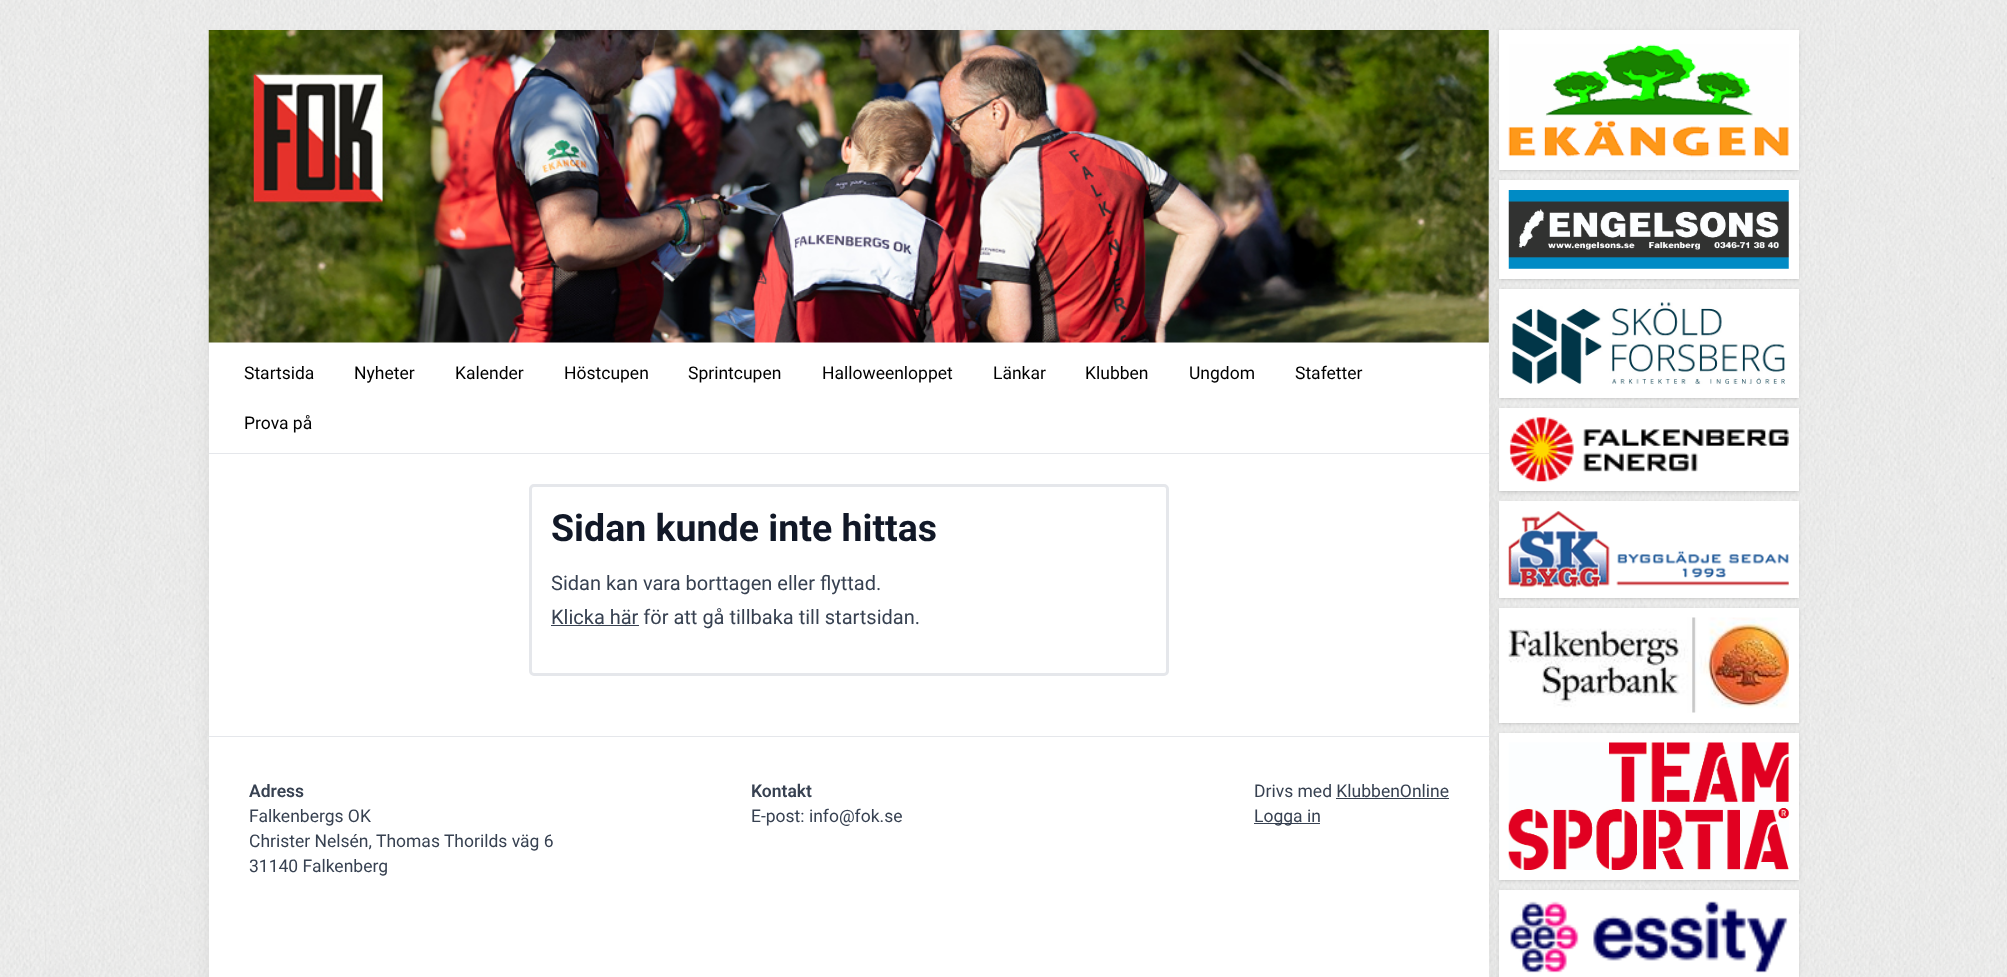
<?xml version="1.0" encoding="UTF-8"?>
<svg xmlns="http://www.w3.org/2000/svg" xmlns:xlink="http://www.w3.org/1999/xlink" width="2007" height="977">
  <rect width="100%" height="100%" fill="#ffffff" />
  <image x="0" y="0" width="2007" height="977" xlink:href="image1.png" />
  <rect x="213" y="46" width="1272" height="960" fill="#000000" fill-opacity="0.1" filter="blur(9.5px)" />
  <rect x="209" y="30" width="1280" height="947" fill="#ffffff" />
  <image x="208" y="30" width="1281" height="313" xlink:href="image2.png" />
  <rect x="209" y="453" width="1280" height="1" fill="#e5e7eb" />
  <rect x="530.5" y="485.5" width="637" height="189" rx="3.5" fill="none" stroke="#e5e7eb" stroke-width="3" />
  <rect x="551" y="625" width="88" height="1" fill="#374151" />
  <rect x="209" y="736" width="1280" height="1" fill="#e5e7eb" />
  <rect x="1336" y="798" width="113" height="1" fill="#374151" />
  <rect x="1254" y="823" width="66" height="1" fill="#374151" />
  <rect x="1500" y="33" width="298" height="137" fill="#000000" fill-opacity="0.1" filter="blur(1px)" />
  <rect x="1499" y="31" width="300" height="140" fill="#000000" fill-opacity="0.1" filter="blur(2px)" />
  <rect x="1499" y="30" width="300" height="140" fill="#ffffff" />
  <image x="1508" y="44" width="281" height="113" xlink:href="image3.png" />
  <rect x="1500" y="183" width="298" height="96" fill="#000000" fill-opacity="0.1" filter="blur(1px)" />
  <rect x="1499" y="181" width="300" height="99" fill="#000000" fill-opacity="0.1" filter="blur(2px)" />
  <rect x="1499" y="180" width="300" height="99" fill="#ffffff" />
  <image x="1508" y="190" width="281" height="79" xlink:href="image4.png" />
  <rect x="1500" y="291" width="298" height="107" fill="#000000" fill-opacity="0.1" filter="blur(1px)" />
  <rect x="1499" y="290" width="300" height="109" fill="#000000" fill-opacity="0.1" filter="blur(2px)" />
  <rect x="1499" y="289" width="300" height="109" fill="#ffffff" />
  <image x="1512" y="302" width="273" height="82" xlink:href="image5.png" />
  <rect x="1500" y="410" width="298" height="81" fill="#000000" fill-opacity="0.1" filter="blur(1px)" />
  <rect x="1499" y="409" width="300" height="84" fill="#000000" fill-opacity="0.1" filter="blur(2px)" />
  <rect x="1499" y="408" width="300" height="83" fill="#ffffff" />
  <image x="1509" y="417" width="280" height="65" xlink:href="image6.png" />
  <rect x="1500" y="504" width="298" height="94" fill="#000000" fill-opacity="0.1" filter="blur(1px)" />
  <rect x="1499" y="503" width="300" height="96" fill="#000000" fill-opacity="0.1" filter="blur(2px)" />
  <rect x="1499" y="501" width="300" height="97" fill="#ffffff" />
  <image x="1508" y="511" width="281" height="77" xlink:href="image7.png" />
  <rect x="1500" y="610" width="298" height="113" fill="#000000" fill-opacity="0.1" filter="blur(1px)" />
  <rect x="1499" y="609" width="300" height="115" fill="#000000" fill-opacity="0.1" filter="blur(2px)" />
  <rect x="1499" y="608" width="300" height="115" fill="#ffffff" />
  <image x="1508" y="617" width="281" height="96" xlink:href="image8.png" />
  <rect x="1500" y="735" width="298" height="145" fill="#000000" fill-opacity="0.1" filter="blur(1px)" />
  <rect x="1499" y="734" width="300" height="147" fill="#000000" fill-opacity="0.1" filter="blur(2px)" />
  <rect x="1499" y="733" width="300" height="147" fill="#ffffff" />
  <image x="1508" y="742" width="281" height="128" xlink:href="image9.png" />
  <rect x="1499" y="891" width="300" height="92" fill="#000000" fill-opacity="0.1" filter="blur(2px)" />
  <rect x="1499" y="890" width="300" height="87" fill="#ffffff" />
  <image x="1510" y="901" width="278" height="72" xlink:href="image10.png" />
  <text x="244" y="379" style="font-family: Roboto; font-size: 17.5px; fill: #000000">Startsida</text>
  <text x="354" y="379" style="font-family: Roboto; font-size: 17.5px; fill: #000000">Nyheter</text>
  <text x="455" y="379" style="font-family: Roboto; font-size: 17.5px; fill: #000000">Kalender</text>
  <text x="564" y="379" style="font-family: Roboto; font-size: 17.5px; fill: #000000">Höstcupen</text>
  <text x="688" y="379" style="font-family: Roboto; font-size: 17.5px; fill: #000000">Sprintcupen</text>
  <text x="822" y="379" style="font-family: Roboto; font-size: 17.5px; fill: #000000">Halloweenloppet</text>
  <text x="993" y="379" style="font-family: Roboto; font-size: 17.5px; fill: #000000">Länkar</text>
  <text x="1085" y="379" style="font-family: Roboto; font-size: 17.5px; fill: #000000">Klubben</text>
  <text x="1189" y="379" style="font-family: Roboto; font-size: 17.5px; fill: #000000">Ungdom</text>
  <text x="1295" y="379" style="font-family: Roboto; font-size: 17.5px; fill: #000000">Stafetter</text>
  <text x="244" y="429" style="font-family: Roboto; font-size: 17.5px; fill: #000000">Prova på</text>
  <text x="551" y="541" style="font-family: Roboto; font-size: 37.5px; font-weight: bold; fill: #111827">Sidan kunde inte hittas</text>
  <text x="551" y="590" style="font-family: Roboto; font-size: 20px; fill: #374151">Sidan kan vara borttagen eller flyttad.</text>
  <text x="551" y="624" style="font-family: Roboto; font-size: 20px; fill: #374151">Klicka här för att gå tillbaka till startsidan.</text>
  <text x="249" y="797" style="font-family: Roboto; font-size: 17.5px; font-weight: 600; fill: #374151">Adress</text>
  <text x="249" y="822" style="font-family: Roboto; font-size: 17.5px; fill: #374151">Falkenbergs OK</text>
  <text x="249" y="847" style="font-family: Roboto; font-size: 17.5px; fill: #374151">Christer Nelsén, Thomas Thorilds väg 6</text>
  <text x="249" y="872" style="font-family: Roboto; font-size: 17.5px; fill: #374151">31140 Falkenberg</text>
  <text x="751" y="797" style="font-family: Roboto; font-size: 17.5px; font-weight: 600; fill: #374151">Kontakt</text>
  <text x="751" y="822" style="font-family: Roboto; font-size: 17.5px; fill: #374151">E-post: info@fok.se</text>
  <text x="1254" y="797" style="font-family: Roboto; font-size: 17.5px; fill: #374151">Drivs med KlubbenOnline</text>
  <text x="1254" y="822" style="font-family: Roboto; font-size: 17.5px; fill: #374151">Logga in</text>
</svg>
